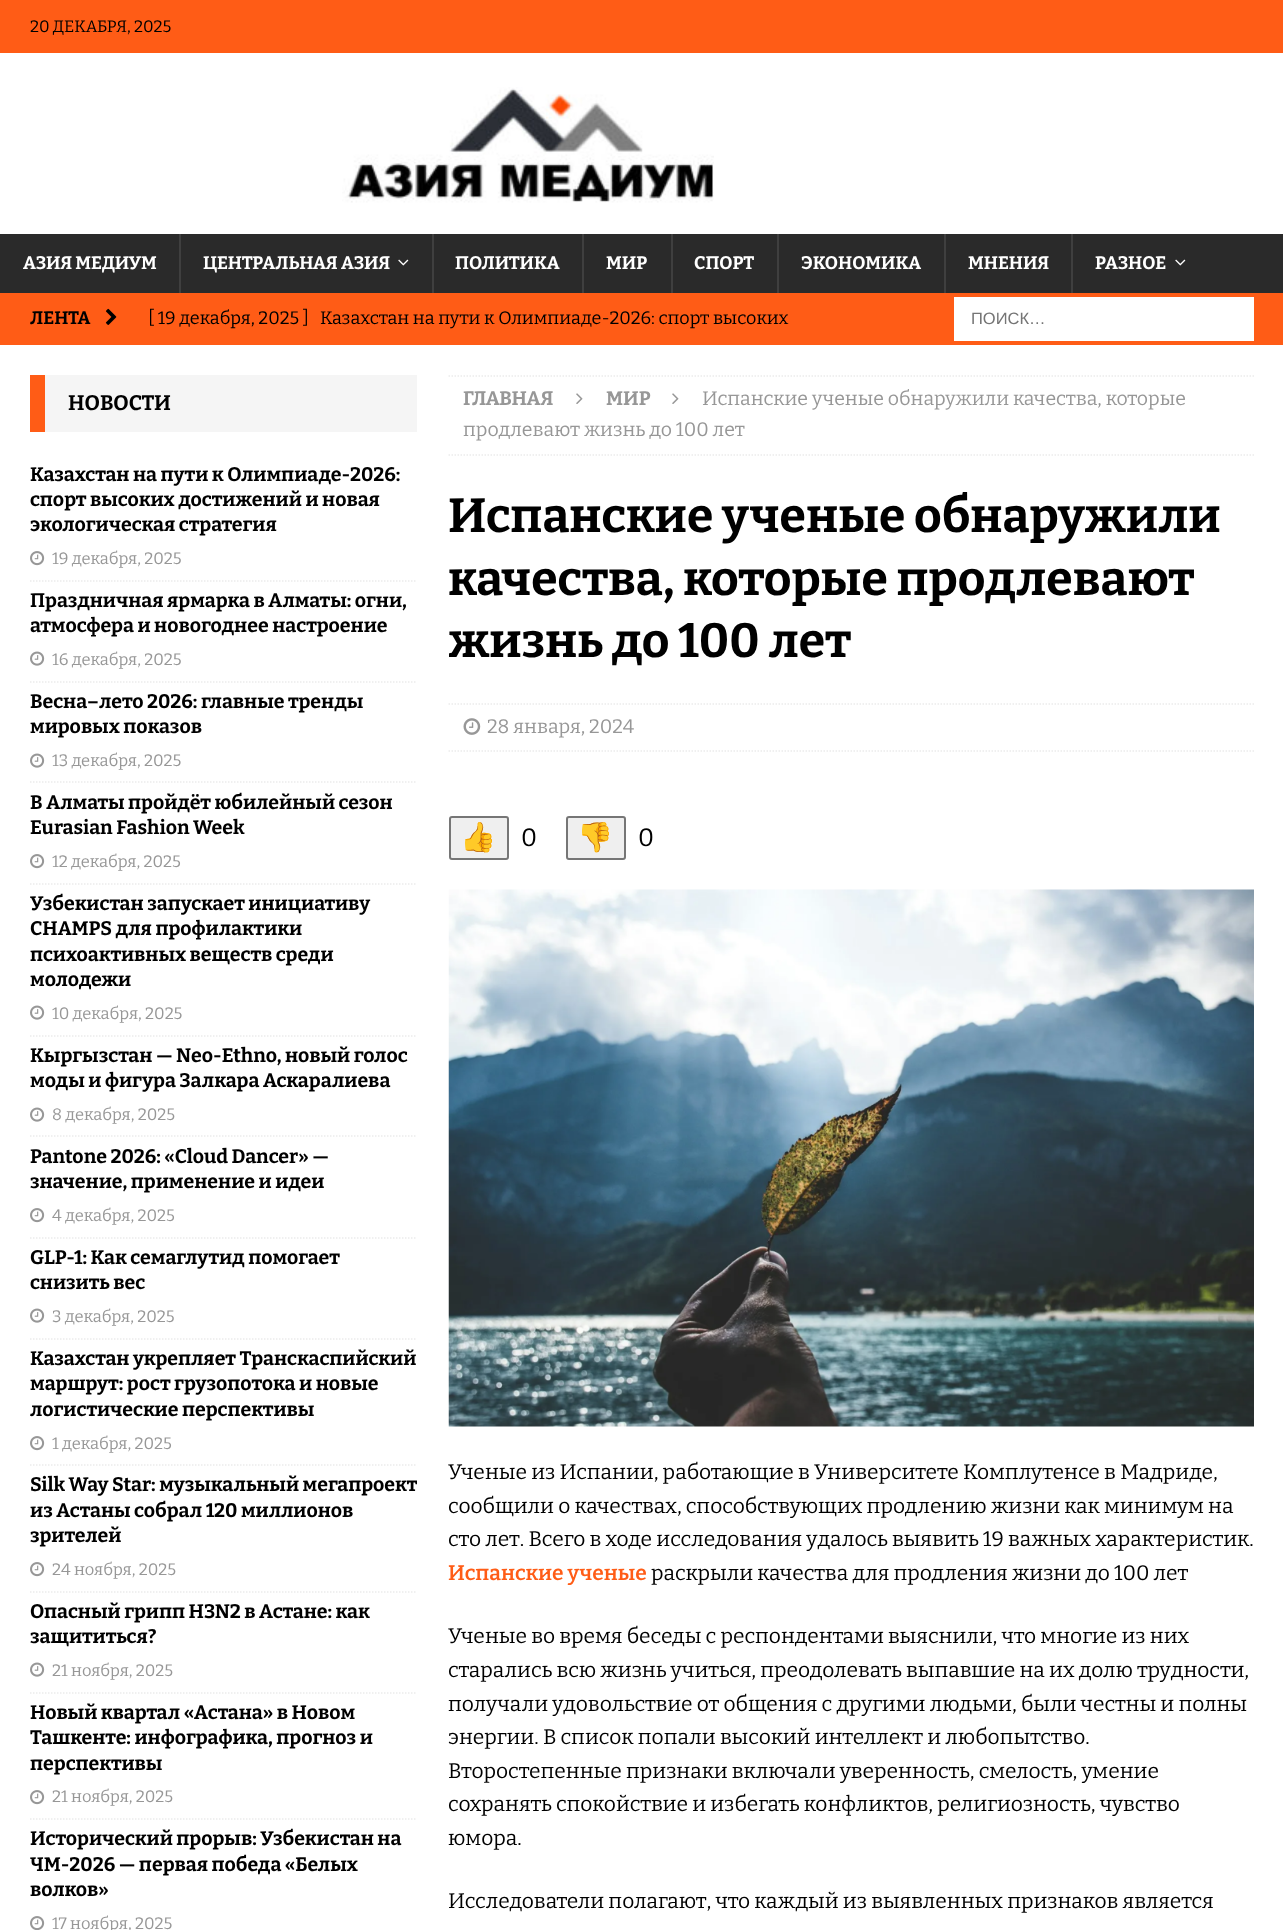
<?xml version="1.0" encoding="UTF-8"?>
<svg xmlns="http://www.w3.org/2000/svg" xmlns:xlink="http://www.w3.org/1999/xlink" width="1283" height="1930">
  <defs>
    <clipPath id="clip1"><rect x="30" y="1473" width="387" height="111" /></clipPath>
    <clipPath id="clip2"><rect x="449" y="375" width="805" height="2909" /></clipPath>
  </defs>
  <rect width="100%" height="100%" fill="#ffffff" />
  <rect width="1283" height="53" fill="#ff5c16" />
  <image x="342" y="87" width="372" height="116" xlink:href="image1.png" />
  <rect y="234" width="1283" height="59" fill="#2a2a2a" />
  <rect x="179" y="234" width="2" height="59" fill="#3f3f3f" />
  <image x="398" y="259" width="11" height="7" xlink:href="image2.png" />
  <rect x="432" y="234" width="2" height="59" fill="#3f3f3f" />
  <rect x="582" y="234" width="2" height="59" fill="#3f3f3f" />
  <rect x="671" y="234" width="2" height="59" fill="#3f3f3f" />
  <rect x="777" y="234" width="2" height="59" fill="#3f3f3f" />
  <rect x="944" y="234" width="2" height="59" fill="#3f3f3f" />
  <rect x="1071" y="234" width="2" height="59" fill="#3f3f3f" />
  <image x="1175" y="259" width="11" height="7" xlink:href="image2.png" />
  <rect y="293" width="1283" height="52" fill="#ff5c16" />
  <image x="105" y="308" width="12" height="17" xlink:href="image3.png" />
  <rect x="954" y="297" width="300" height="44" fill="#ffffff" />
  <rect x="45" y="375" width="372" height="57" fill="#f5f5f5" />
  <rect x="30" y="375" width="15" height="57" fill="#ff5c16" />
  <path d="M 30 581 h 387" fill="none" stroke="#ebebeb" stroke-width="1.5" stroke-dasharray="1.5 1.5" />
  <image x="30" y="551" width="15" height="15" xlink:href="image4.png" />
  <path d="M 30 682 h 387" fill="none" stroke="#ebebeb" stroke-width="1.5" stroke-dasharray="1.5 1.5" />
  <image x="30" y="651" width="15" height="15" xlink:href="image5.png" />
  <path d="M 30 782 h 387" fill="none" stroke="#ebebeb" stroke-width="1.5" stroke-dasharray="1.5 1.5" />
  <image x="30" y="753" width="15" height="15" xlink:href="image5.png" />
  <path d="M 30 884 h 387" fill="none" stroke="#ebebeb" stroke-width="1.5" stroke-dasharray="1.5 1.5" />
  <image x="30" y="854" width="15" height="15" xlink:href="image4.png" />
  <path d="M 30 1036 h 387" fill="none" stroke="#ebebeb" stroke-width="1.5" stroke-dasharray="1.5 1.5" />
  <image x="30" y="1005" width="15" height="15" xlink:href="image5.png" />
  <path d="M 30 1136 h 387" fill="none" stroke="#ebebeb" stroke-width="1.5" stroke-dasharray="1.5 1.5" />
  <image x="30" y="1107" width="15" height="15" xlink:href="image5.png" />
  <path d="M 30 1238 h 387" fill="none" stroke="#ebebeb" stroke-width="1.5" stroke-dasharray="1.5 1.5" />
  <image x="30" y="1208" width="15" height="15" xlink:href="image4.png" />
  <path d="M 30 1339 h 387" fill="none" stroke="#ebebeb" stroke-width="1.5" stroke-dasharray="1.5 1.5" />
  <image x="30" y="1308" width="15" height="15" xlink:href="image5.png" />
  <path d="M 30 1465 h 387" fill="none" stroke="#ebebeb" stroke-width="1.5" stroke-dasharray="1.5 1.5" />
  <image x="30" y="1436" width="15" height="15" xlink:href="image4.png" />
  <path d="M 30 1592 h 387" fill="none" stroke="#ebebeb" stroke-width="1.5" stroke-dasharray="1.5 1.5" />
  <image x="30" y="1562" width="15" height="15" xlink:href="image4.png" />
  <path d="M 30 1693 h 387" fill="none" stroke="#ebebeb" stroke-width="1.5" stroke-dasharray="1.5 1.5" />
  <image x="30" y="1662" width="15" height="15" xlink:href="image5.png" />
  <path d="M 30 1819 h 387" fill="none" stroke="#ebebeb" stroke-width="1.5" stroke-dasharray="1.5 1.5" />
  <image x="30" y="1790" width="15" height="15" xlink:href="image4.png" />
  <image x="30" y="1916" width="15" height="14" xlink:href="image6.png" />
  <path d="M 448.5 376 h 805.5" fill="none" stroke="#ebebeb" stroke-width="1.5" stroke-dasharray="1.5 1.5" />
  <path d="M 448.5 455 h 805.5" fill="none" stroke="#ebebeb" stroke-width="1.5" stroke-dasharray="1.5 1.5" />
  <image x="576" y="393" width="7" height="11" xlink:href="image7.png" />
  <image x="672" y="393" width="7" height="11" xlink:href="image7.png" />
  <path d="M 448.5 704 h 805.5" fill="none" stroke="#ebebeb" stroke-width="1.5" stroke-dasharray="1.5 1.5" />
  <path d="M 448.5 751 h 805.5" fill="none" stroke="#ebebeb" stroke-width="1.5" stroke-dasharray="1.5 1.5" />
  <image x="463" y="718" width="18" height="17" xlink:href="image8.png" />
  <rect x="450" y="817" width="58" height="42" rx="2" fill="#efefef" stroke="#767676" stroke-width="2" />
  <rect x="567" y="817" width="58" height="42" rx="2" fill="#efefef" stroke="#767676" stroke-width="2" />
  <image x="448" y="889" width="806" height="538" xlink:href="image9.png" />
  <text x="30" y="32" style="font-family: Bitter; font-size: 16.5px; fill: #000000">20 ДЕКАБРЯ, 2025</text>
  <text x="23" y="269" style="font-family: Bitter; font-size: 18px; font-weight: bold; fill: #ffffff">АЗИЯ МЕДИУМ</text>
  <text x="203" y="269" style="font-family: Bitter; font-size: 18px; font-weight: bold; fill: #ffffff">ЦЕНТРАЛЬНАЯ АЗИЯ</text>
  <text x="455" y="269" style="font-family: Bitter; font-size: 18px; font-weight: bold; fill: #ffffff">ПОЛИТИКА</text>
  <text x="606" y="269" style="font-family: Bitter; font-size: 18px; font-weight: bold; fill: #ffffff">МИР</text>
  <text x="694" y="269" style="font-family: Bitter; font-size: 18px; font-weight: bold; fill: #ffffff">СПОРТ</text>
  <text x="801" y="269" style="font-family: Bitter; font-size: 18px; font-weight: bold; fill: #ffffff">ЭКОНОМИКА</text>
  <text x="968" y="269" style="font-family: Bitter; font-size: 18px; font-weight: bold; fill: #ffffff">МНЕНИЯ</text>
  <text x="1095" y="269" style="font-family: Bitter; font-size: 18px; font-weight: bold; fill: #ffffff">РАЗНОЕ</text>
  <text x="30" y="324" style="font-family: Bitter; font-size: 18px; font-weight: bold; fill: #000000">ЛЕНТА</text>
  <text x="148" y="324" style="font-family: Bitter; font-size: 18px; fill: #000000">[ 19 декабря, 2025 ]</text>
  <text x="320" y="324" style="font-family: Bitter; font-size: 18px; fill: #000000">Казахстан на пути к Олимпиаде-2026: спорт высоких</text>
  <text x="971" y="324" style="font-family: Liberation Sans; font-size: 16.5px; fill: #757575">ПОИСК…</text>
  <text x="68" y="410" style="font-family: Bitter; font-size: 21px; font-weight: bold; fill: #000000">НОВОСТИ</text>
  <text x="30" y="481" style="font-family: Bitter; font-size: 19.5px; font-weight: bold; fill: #000000">Казахстан на пути к Олимпиаде-2026:</text>
  <text x="30" y="506" style="font-family: Bitter; font-size: 19.5px; font-weight: bold; fill: #000000">спорт высоких достижений и новая</text>
  <text x="30" y="531" style="font-family: Bitter; font-size: 19.5px; font-weight: bold; fill: #000000">экологическая стратегия</text>
  <text x="52" y="564" style="font-family: Bitter; font-size: 16.5px; fill: #979797">19 декабря, 2025</text>
  <text x="30" y="607" style="font-family: Bitter; font-size: 19.5px; font-weight: bold; fill: #000000">Праздничная ярмарка в Алматы: огни,</text>
  <text x="30" y="632" style="font-family: Bitter; font-size: 19.5px; font-weight: bold; fill: #000000">атмосфера и новогоднее настроение</text>
  <text x="52" y="665" style="font-family: Bitter; font-size: 16.5px; fill: #979797">16 декабря, 2025</text>
  <text x="30" y="708" style="font-family: Bitter; font-size: 19.5px; font-weight: bold; fill: #000000">Весна–лето 2026: главные тренды</text>
  <text x="30" y="733" style="font-family: Bitter; font-size: 19.5px; font-weight: bold; fill: #000000">мировых показов</text>
  <text x="52" y="766" style="font-family: Bitter; font-size: 16.5px; fill: #979797">13 декабря, 2025</text>
  <text x="30" y="809" style="font-family: Bitter; font-size: 19.5px; font-weight: bold; fill: #000000">В Алматы пройдёт юбилейный сезон</text>
  <text x="30" y="834" style="font-family: Bitter; font-size: 19.5px; font-weight: bold; fill: #000000">Eurasian Fashion Week</text>
  <text x="52" y="867" style="font-family: Bitter; font-size: 16.5px; fill: #979797">12 декабря, 2025</text>
  <text x="30" y="910" style="font-family: Bitter; font-size: 19.5px; font-weight: bold; fill: #000000">Узбекистан запускает инициативу</text>
  <text x="30" y="935" style="font-family: Bitter; font-size: 19.5px; font-weight: bold; fill: #000000">CHAMPS для профилактики</text>
  <text x="30" y="961" style="font-family: Bitter; font-size: 19.5px; font-weight: bold; fill: #000000">психоактивных веществ среди</text>
  <text x="30" y="986" style="font-family: Bitter; font-size: 19.5px; font-weight: bold; fill: #000000">молодежи</text>
  <text x="52" y="1019" style="font-family: Bitter; font-size: 16.5px; fill: #979797">10 декабря, 2025</text>
  <text x="30" y="1062" style="font-family: Bitter; font-size: 19.5px; font-weight: bold; fill: #000000">Кыргызстан — Neo-Ethno, новый голос</text>
  <text x="30" y="1087" style="font-family: Bitter; font-size: 19.5px; font-weight: bold; fill: #000000">моды и фигура Залкара Аскаралиева</text>
  <text x="52" y="1120" style="font-family: Bitter; font-size: 16.5px; fill: #979797">8 декабря, 2025</text>
  <text x="30" y="1163" style="font-family: Bitter; font-size: 19.5px; font-weight: bold; fill: #000000">Pantone 2026: «Cloud Dancer» —</text>
  <text x="30" y="1188" style="font-family: Bitter; font-size: 19.5px; font-weight: bold; fill: #000000">значение, применение и идеи</text>
  <text x="52" y="1221" style="font-family: Bitter; font-size: 16.5px; fill: #979797">4 декабря, 2025</text>
  <text x="30" y="1264" style="font-family: Bitter; font-size: 19.5px; font-weight: bold; fill: #000000">GLP-1: Как семаглутид помогает</text>
  <text x="30" y="1289" style="font-family: Bitter; font-size: 19.5px; font-weight: bold; fill: #000000">снизить вес</text>
  <text x="52" y="1322" style="font-family: Bitter; font-size: 16.5px; fill: #979797">3 декабря, 2025</text>
  <text x="30" y="1365" style="font-family: Bitter; font-size: 19.5px; font-weight: bold; fill: #000000">Казахстан укрепляет Транскаспийский</text>
  <text x="30" y="1390" style="font-family: Bitter; font-size: 19.5px; font-weight: bold; fill: #000000">маршрут: рост грузопотока и новые</text>
  <text x="30" y="1416" style="font-family: Bitter; font-size: 19.5px; font-weight: bold; fill: #000000">логистические перспективы</text>
  <text x="52" y="1449" style="font-family: Bitter; font-size: 16.5px; fill: #979797">1 декабря, 2025</text>
  <g clip-path="url(#clip1)">
    <text x="30" y="1491" style="font-family: Bitter; font-size: 19.5px; font-weight: bold; fill: #000000">Silk Way Star: музыкальный мегапроект</text>
  </g>
  <text x="30" y="1517" style="font-family: Bitter; font-size: 19.5px; font-weight: bold; fill: #000000">из Астаны собрал 120 миллионов</text>
  <text x="30" y="1542" style="font-family: Bitter; font-size: 19.5px; font-weight: bold; fill: #000000">зрителей</text>
  <text x="52" y="1575" style="font-family: Bitter; font-size: 16.5px; fill: #979797">24 ноября, 2025</text>
  <text x="30" y="1618" style="font-family: Bitter; font-size: 19.5px; font-weight: bold; fill: #000000">Опасный грипп H3N2 в Астане: как</text>
  <text x="30" y="1643" style="font-family: Bitter; font-size: 19.5px; font-weight: bold; fill: #000000">защититься?</text>
  <text x="52" y="1676" style="font-family: Bitter; font-size: 16.5px; fill: #979797">21 ноября, 2025</text>
  <text x="30" y="1719" style="font-family: Bitter; font-size: 19.5px; font-weight: bold; fill: #000000">Новый квартал «Астана» в Новом</text>
  <text x="30" y="1744" style="font-family: Bitter; font-size: 19.5px; font-weight: bold; fill: #000000">Ташкенте: инфографика, прогноз и</text>
  <text x="30" y="1770" style="font-family: Bitter; font-size: 19.5px; font-weight: bold; fill: #000000">перспективы</text>
  <text x="52" y="1802" style="font-family: Bitter; font-size: 16.5px; fill: #979797">21 ноября, 2025</text>
  <text x="30" y="1845" style="font-family: Bitter; font-size: 19.5px; font-weight: bold; fill: #000000">Исторический прорыв: Узбекистан на</text>
  <text x="30" y="1871" style="font-family: Bitter; font-size: 19.5px; font-weight: bold; fill: #000000">ЧМ-2026 — первая победа «Белых</text>
  <text x="30" y="1896" style="font-family: Bitter; font-size: 19.5px; font-weight: bold; fill: #000000">волков»</text>
  <text x="52" y="1929" style="font-family: Bitter; font-size: 16.5px; fill: #979797">17 ноября, 2025</text>
  <text x="463" y="405" style="font-family: Bitter; font-size: 19.5px; font-weight: bold; fill: #979797">ГЛАВНАЯ</text>
  <text x="606" y="405" style="font-family: Bitter; font-size: 19.5px; font-weight: bold; fill: #979797">МИР</text>
  <text x="702" y="405" style="font-family: Bitter; font-size: 19.5px; fill: #979797">Испанские ученые обнаружили качества, которые</text>
  <text x="463" y="436" style="font-family: Bitter; font-size: 19.5px; fill: #979797">продлевают жизнь до 100 лет</text>
  <text x="448" y="532" style="font-family: Bitter; font-size: 48px; font-weight: bold; fill: #000000">Испанские ученые обнаружили</text>
  <text x="448" y="595" style="font-family: Bitter; font-size: 48px; font-weight: bold; fill: #000000">качества, которые продлевают</text>
  <g clip-path="url(#clip2)">
    <text x="448" y="657" style="font-family: Bitter; font-size: 48px; font-weight: bold; fill: #000000">жизнь до 100 лет</text>
  </g>
  <text x="487" y="733" style="font-family: Bitter; font-size: 19.5px; fill: #979797">28 января, 2024</text>
  <text x="460" y="847" style="font-family: Noto Color Emoji; font-size: 29px; fill: #888888">👍</text>
  <text x="521" y="846" style="font-family: Bitter; font-size: 25px; fill: #000000">0</text>
  <text x="577" y="847" style="font-family: Noto Color Emoji; font-size: 29px; fill: #888888">👎</text>
  <text x="638" y="846" style="font-family: Bitter; font-size: 25px; fill: #000000">0</text>
  <text x="448" y="1479" style="font-family: Bitter; font-size: 21px; fill: #000000">Ученые из Испании, работающие в Университете Комплутенсе в Мадриде,</text>
  <text x="448" y="1513" style="font-family: Bitter; font-size: 21px; fill: #000000">сообщили о качествах, способствующих продлению жизни как минимум на</text>
  <text x="448" y="1546" style="font-family: Bitter; font-size: 21px; fill: #000000">сто лет. Всего в ходе исследования удалось выявить 19 важных характеристик.</text>
  <text x="448" y="1580" style="font-family: Bitter; font-size: 21px; font-weight: 600; fill: #ff5c16">Испанские ученые</text>
  <text x="651" y="1580" style="font-family: Bitter; font-size: 21px; fill: #000000">раскрыли качества для продления жизни до 100 лет</text>
  <text x="448" y="1643" style="font-family: Bitter; font-size: 21px; fill: #000000">Ученые во время беседы с респондентами выяснили, что многие из них</text>
  <text x="448" y="1677" style="font-family: Bitter; font-size: 21px; fill: #000000">старались всю жизнь учиться, преодолевать выпавшие на их долю трудности,</text>
  <text x="448" y="1711" style="font-family: Bitter; font-size: 21px; fill: #000000">получали удовольствие от общения с другими людьми, были честны и полны</text>
  <text x="448" y="1744" style="font-family: Bitter; font-size: 21px; fill: #000000">энергии. В список попали высокий интеллект и любопытство.</text>
  <text x="448" y="1778" style="font-family: Bitter; font-size: 21px; fill: #000000">Второстепенные признаки включали уверенность, смелость, умение</text>
  <text x="448" y="1811" style="font-family: Bitter; font-size: 21px; fill: #000000">сохранять спокойствие и избегать конфликтов, религиозность, чувство</text>
  <text x="448" y="1845" style="font-family: Bitter; font-size: 21px; fill: #000000">юмора.</text>
  <text x="448" y="1908" style="font-family: Bitter; font-size: 21px; fill: #000000">Исследователи полагают, что каждый из выявленных признаков является</text>
</svg>
